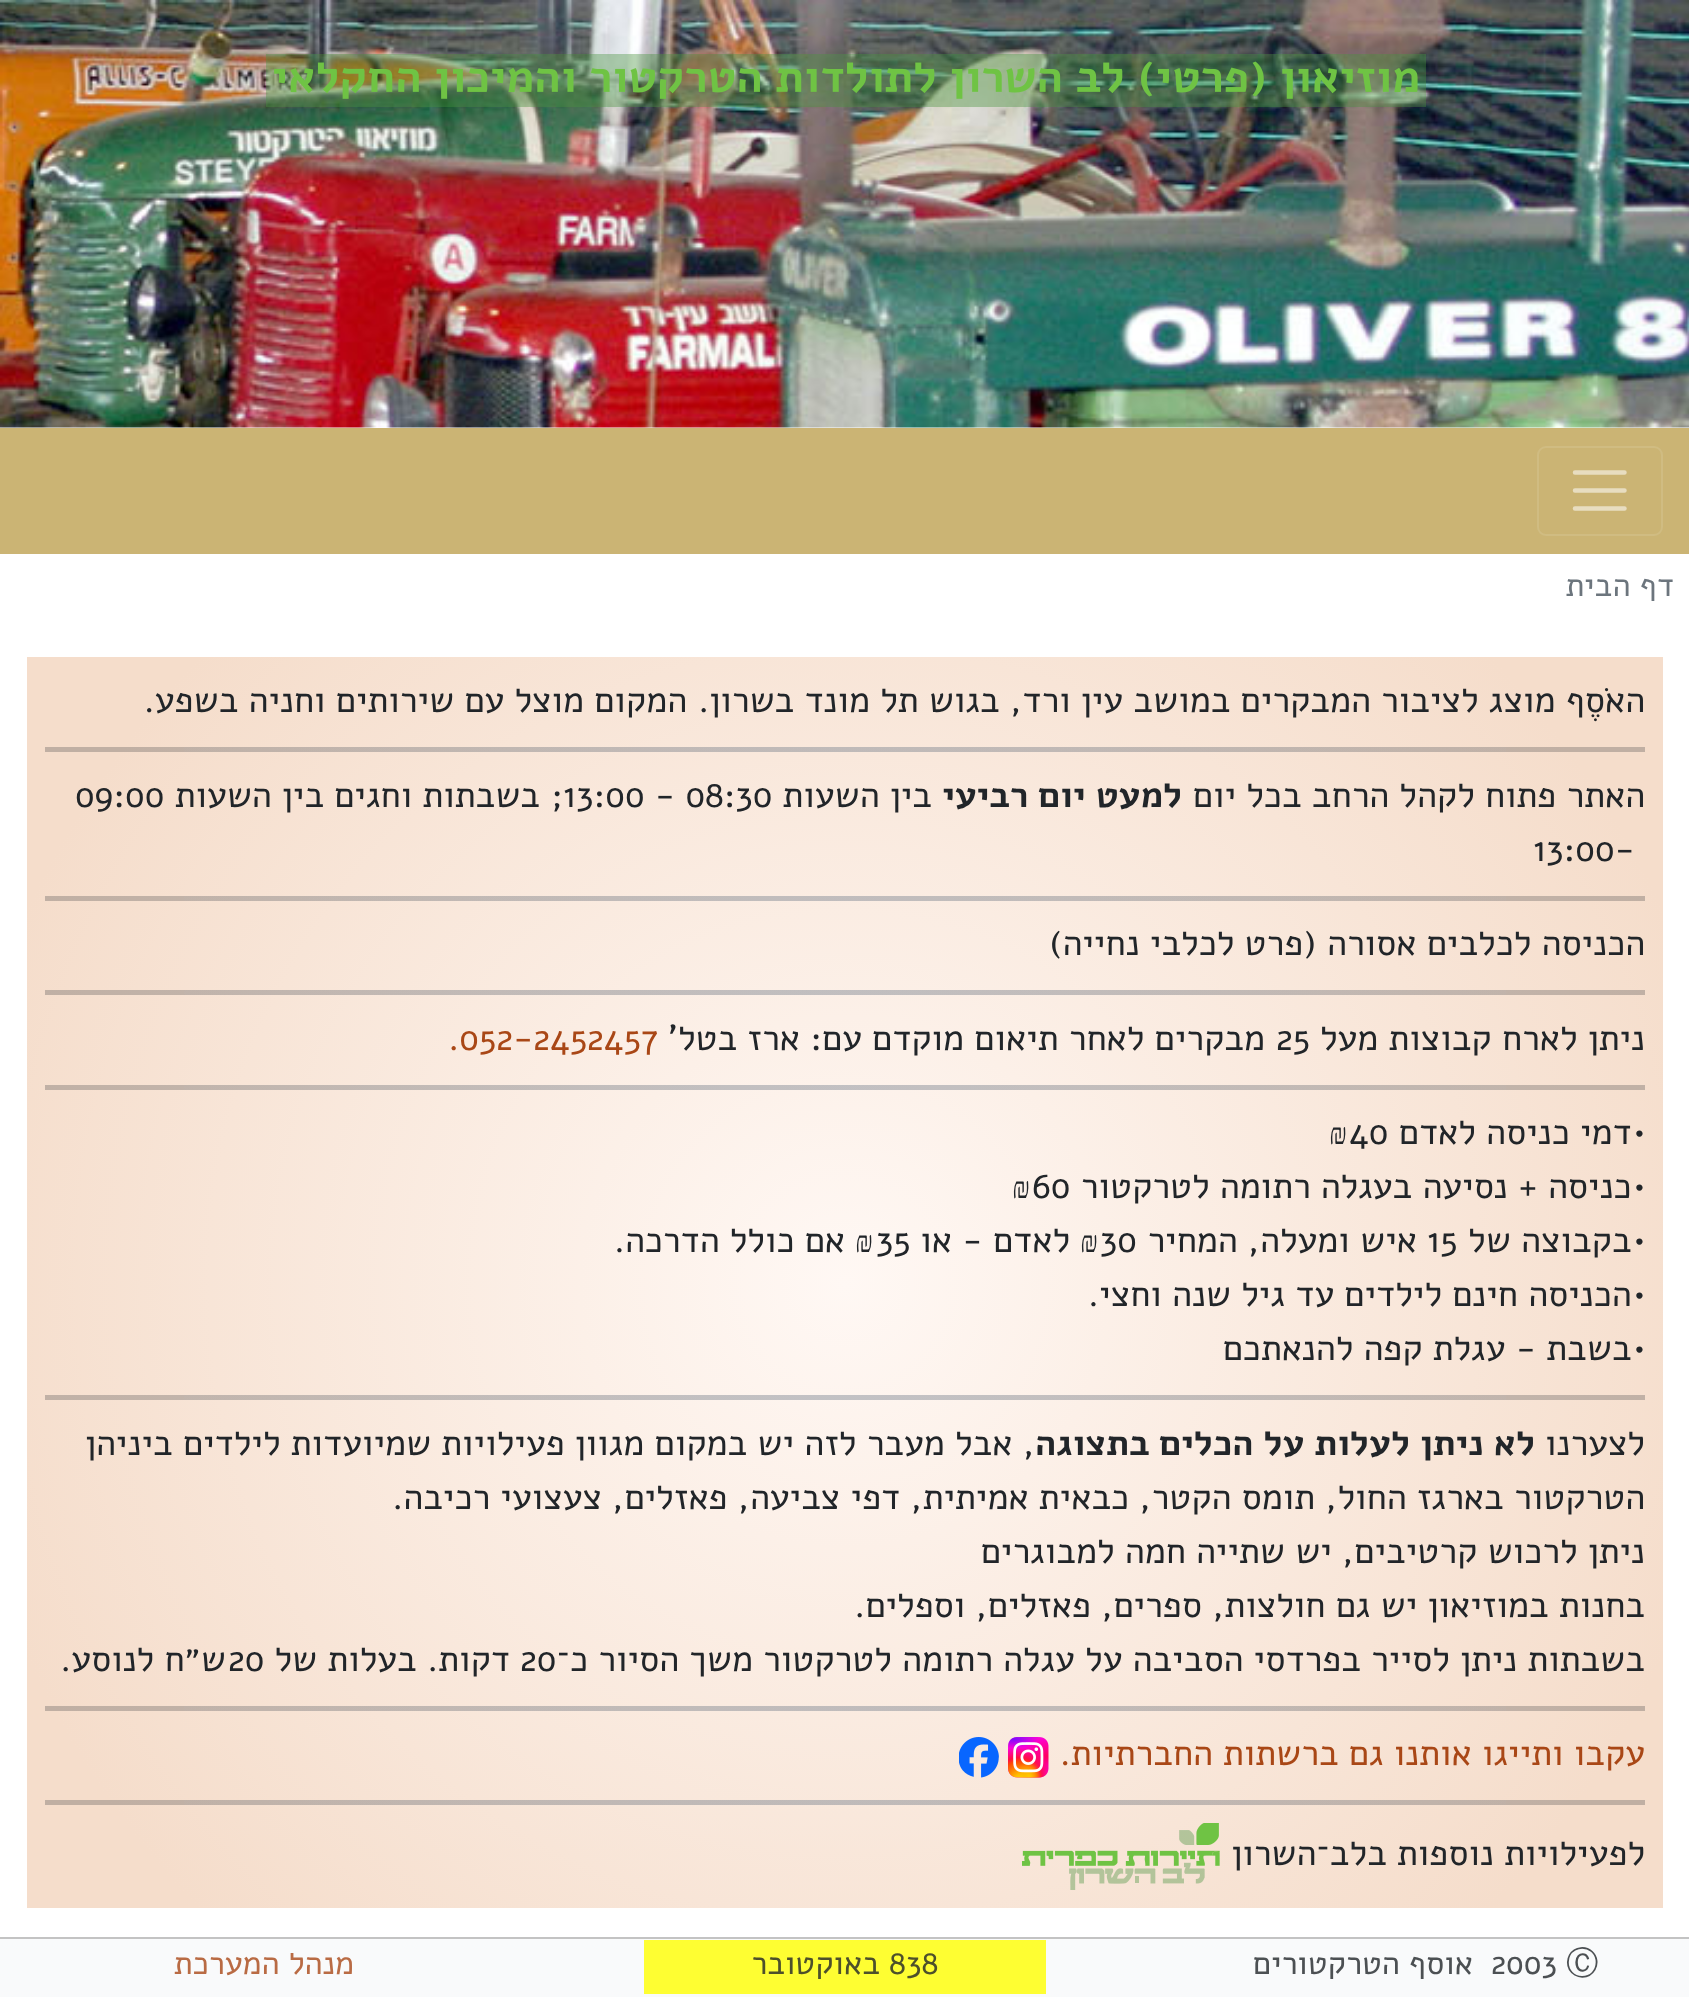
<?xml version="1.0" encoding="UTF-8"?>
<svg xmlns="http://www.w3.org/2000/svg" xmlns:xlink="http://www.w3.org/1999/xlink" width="1689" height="1997">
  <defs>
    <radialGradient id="g1" gradientUnits="userSpaceOnUse" cx="845" cy="1283" r="900"><stop offset="0" stop-color="#fff8f4" /><stop offset="1" stop-color="#f5ddcb" /></radialGradient>
    <radialGradient id="g2" gradientUnits="userSpaceOnUse" cx="845" cy="1283" r="900"><stop offset="0" stop-color="#c8c3c1" /><stop offset="1" stop-color="#c0afa3" /></radialGradient>
    <linearGradient id="g3" gradientUnits="userSpaceOnUse" x1="45" y1="749" x2="1645" y2="749"><stop offset="0" stop-color="#aec6e3" stop-opacity="0" /><stop offset="0.5" stop-color="#aec6e3" stop-opacity="0.19" /><stop offset="1" stop-color="#aec6e3" stop-opacity="0" /></linearGradient>
    <linearGradient id="g4" gradientUnits="userSpaceOnUse" x1="45" y1="898" x2="1645" y2="898"><stop offset="0" stop-color="#aec6e3" stop-opacity="0" /><stop offset="0.5" stop-color="#aec6e3" stop-opacity="0.19" /><stop offset="1" stop-color="#aec6e3" stop-opacity="0" /></linearGradient>
    <linearGradient id="g5" gradientUnits="userSpaceOnUse" x1="45" y1="992" x2="1645" y2="992"><stop offset="0" stop-color="#aec6e3" stop-opacity="0" /><stop offset="0.5" stop-color="#aec6e3" stop-opacity="0.19" /><stop offset="1" stop-color="#aec6e3" stop-opacity="0" /></linearGradient>
    <linearGradient id="g6" gradientUnits="userSpaceOnUse" x1="45" y1="1087" x2="1645" y2="1087"><stop offset="0" stop-color="#aec6e3" stop-opacity="0" /><stop offset="0.5" stop-color="#aec6e3" stop-opacity="0.19" /><stop offset="1" stop-color="#aec6e3" stop-opacity="0" /></linearGradient>
    <linearGradient id="g7" gradientUnits="userSpaceOnUse" x1="45" y1="1397" x2="1645" y2="1397"><stop offset="0" stop-color="#aec6e3" stop-opacity="0" /><stop offset="0.5" stop-color="#aec6e3" stop-opacity="0.19" /><stop offset="1" stop-color="#aec6e3" stop-opacity="0" /></linearGradient>
    <linearGradient id="g8" gradientUnits="userSpaceOnUse" x1="45" y1="1708" x2="1645" y2="1708"><stop offset="0" stop-color="#aec6e3" stop-opacity="0" /><stop offset="0.5" stop-color="#aec6e3" stop-opacity="0.19" /><stop offset="1" stop-color="#aec6e3" stop-opacity="0" /></linearGradient>
    <linearGradient id="g9" gradientUnits="userSpaceOnUse" x1="45" y1="1802" x2="1645" y2="1802"><stop offset="0" stop-color="#aec6e3" stop-opacity="0" /><stop offset="0.5" stop-color="#aec6e3" stop-opacity="0.19" /><stop offset="1" stop-color="#aec6e3" stop-opacity="0" /></linearGradient>
  </defs>
  <rect width="100%" height="100%" fill="#ffffff" />
  <image x="0" y="0" width="1689" height="428" xlink:href="image1.png" />
  <image x="266" y="54" width="1160" height="53" xlink:href="image2.png" />
  <rect y="428" width="1689" height="126" fill="#cbb474" />
  <rect x="1538" y="447" width="124" height="88" rx="8" fill="none" stroke="#d0bc82" stroke-width="2" />
  <path d="M 1575 472.5 h 49.5 m -49.5 18 h 49.5 m -49.5 18 h 49.5" fill="none" stroke="#e8ddc0" stroke-width="4.5" stroke-linecap="round" />
  <rect x="27" y="657" width="1636" height="1251" fill="url(#g1)" />
  <rect x="45" y="1800" width="1600" height="5" fill="url(#g2)" />
  <rect x="45" y="1706" width="1600" height="5" fill="url(#g2)" />
  <rect x="45" y="1395" width="1600" height="5" fill="url(#g2)" />
  <rect x="45" y="1085" width="1600" height="5" fill="url(#g2)" />
  <rect x="45" y="990" width="1600" height="5" fill="url(#g2)" />
  <rect x="45" y="896" width="1600" height="5" fill="url(#g2)" />
  <rect x="45" y="747" width="1600" height="5" fill="url(#g2)" />
  <rect x="184" y="747" width="1322" height="5" fill="url(#g3)" />
  <rect x="184" y="896" width="1322" height="5" fill="url(#g4)" />
  <rect x="184" y="990" width="1322" height="5" fill="url(#g5)" />
  <rect x="184" y="1085" width="1322" height="5" fill="url(#g6)" />
  <rect x="184" y="1395" width="1322" height="5" fill="url(#g7)" />
  <rect x="184" y="1706" width="1322" height="5" fill="url(#g8)" />
  <image x="1008" y="1737" width="41" height="41" xlink:href="image3.png" />
  <image x="959" y="1737" width="40" height="41" xlink:href="image4.png" />
  <rect x="184" y="1800" width="1322" height="5" fill="url(#g9)" />
  <image x="1022" y="1823" width="198" height="67" xlink:href="image5.png" />
  <rect y="1937" width="1689" height="60" fill="#f8f9fa" fill-opacity="0.8" />
  <rect y="1937" width="1689" height="2" fill="#b5b5b5" fill-opacity="0.8" />
  <rect x="889" y="1940" width="157" height="54" fill="#ffff00" fill-opacity="0.8" />
  <rect x="644" y="1940" width="245" height="54" fill="#ffff00" fill-opacity="0.8" />
  <text x="1674" y="596" style="font-family: Alef; font-size: 32.5px; direction: rtl; fill: #6c757d">דף הבית</text>
  <text x="1645" y="712" style="font-family: Alef; font-size: 36px; direction: rtl; fill: #212529">האֹסֶף מוצג לציבור המבקרים במושב עין ורד, בגוש תל מונד בשרון.</text>
  <text x="687" y="712" style="font-family: Alef; font-size: 36px; direction: rtl; fill: #212529">המקום מוצל עם שירותים וחניה בשפע.</text>
  <text x="1645" y="807" style="font-family: Alef; font-size: 36px; direction: rtl; fill: #212529">האתר פתוח לקהל הרחב בכל יום</text>
  <text x="1182" y="807" style="font-family: Alef; font-size: 36px; font-weight: bold; direction: rtl; fill: #212529">למעט יום רביעי</text>
  <text x="932" y="807" style="font-family: Alef; font-size: 36px; direction: rtl; fill: #212529">בין השעות</text>
  <text x="563" y="807" style="font-family: Alef; font-size: 36px; fill: #212529">13:00 - 08:30</text>
  <text x="563" y="807" style="font-family: Alef; font-size: 36px; direction: rtl; fill: #212529">; בשבתות וחגים בין השעות</text>
  <text x="75" y="807" style="font-family: Alef; font-size: 36px; fill: #212529">09:00</text>
  <text x="1533" y="861" style="font-family: Alef; font-size: 36px; fill: #212529">13:00-</text>
  <text x="1645" y="955" style="font-family: Alef; font-size: 36px; direction: rtl; fill: #212529">הכניסה לכלבים אסורה (פרט לכלבי נחייה)</text>
  <text x="1645" y="1050" style="font-family: Alef; font-size: 36px; direction: rtl; fill: #212529">ניתן לארח קבוצות מעל</text>
  <text x="1276" y="1050" style="font-family: Alef; font-size: 36px; fill: #212529">25</text>
  <text x="1265" y="1050" style="font-family: Alef; font-size: 36px; direction: rtl; fill: #212529">מבקרים לאחר תיאום מוקדם עם:</text>
  <text x="800" y="1050" style="font-family: Alef; font-size: 36px; direction: rtl; fill: #212529">ארז בטל'</text>
  <text x="448" y="1050" style="font-family: Alef; font-size: 36px; fill: #a94716">.052-2452457</text>
  <text x="1645" y="1144" style="font-family: Alef; font-size: 36px; direction: rtl; fill: #212529">• דמי כניסה לאדם</text>
  <text x="1349" y="1144" style="font-family: Alef; font-size: 36px; fill: #212529">40</text>
  <text x="1329" y="1144" style="font-family: Liberation Serif; font-size: 30px; fill: #212529">₪</text>
  <text x="1645" y="1198" style="font-family: Alef; font-size: 36px; direction: rtl; fill: #212529">• כניסה + נסיעה בעגלה רתומה לטרקטור</text>
  <text x="1032" y="1198" style="font-family: Alef; font-size: 36px; fill: #212529">60</text>
  <text x="1012" y="1198" style="font-family: Liberation Serif; font-size: 30px; fill: #212529">₪</text>
  <text x="1645" y="1252" style="font-family: Alef; font-size: 36px; direction: rtl; fill: #212529">• בקבוצה של</text>
  <text x="1427" y="1252" style="font-family: Alef; font-size: 36px; fill: #212529">15</text>
  <text x="1417" y="1252" style="font-family: Alef; font-size: 36px; direction: rtl; fill: #212529">איש ומעלה, המחיר</text>
  <text x="1100" y="1252" style="font-family: Alef; font-size: 36px; fill: #212529">30</text>
  <text x="1080" y="1252" style="font-family: Liberation Serif; font-size: 30px; fill: #212529">₪</text>
  <text x="1070" y="1252" style="font-family: Alef; font-size: 36px; direction: rtl; fill: #212529">לאדם - או</text>
  <text x="876" y="1252" style="font-family: Alef; font-size: 36px; fill: #212529">35</text>
  <text x="855" y="1252" style="font-family: Liberation Serif; font-size: 30px; fill: #212529">₪</text>
  <text x="845" y="1252" style="font-family: Alef; font-size: 36px; direction: rtl; fill: #212529">אם כולל הדרכה.</text>
  <text x="1645" y="1306" style="font-family: Alef; font-size: 36px; direction: rtl; fill: #212529">• הכניסה חינם לילדים עד גיל שנה וחצי.</text>
  <text x="1645" y="1360" style="font-family: Alef; font-size: 36px; direction: rtl; fill: #212529">• בשבת - עגלת קפה להנאתכם</text>
  <text x="1645" y="1455" style="font-family: Alef; font-size: 36px; direction: rtl; fill: #212529">לצערנו</text>
  <text x="1535" y="1455" style="font-family: Alef; font-size: 36px; font-weight: bold; direction: rtl; fill: #212529">לא ניתן לעלות על הכלים בתצוגה</text>
  <text x="1035" y="1455" style="font-family: Alef; font-size: 36px; direction: rtl; fill: #212529">, אבל מעבר לזה יש במקום מגוון פעילויות שמיועדות לילדים ביניהן</text>
  <text x="1645" y="1509" style="font-family: Alef; font-size: 36px; direction: rtl; fill: #212529">הטרקטור בארגז החול, תומס הקטר, כבאית אמיתית, דפי צביעה, פאזלים, צעצועי רכיבה.</text>
  <text x="1645" y="1563" style="font-family: Alef; font-size: 36px; direction: rtl; fill: #212529">ניתן לרכוש קרטיבים, יש שתייה חמה למבוגרים</text>
  <text x="1645" y="1617" style="font-family: Alef; font-size: 36px; direction: rtl; fill: #212529">בחנות במוזיאון יש גם חולצות, ספרים, פאזלים, וספלים.</text>
  <text x="1645" y="1671" style="font-family: Alef; font-size: 36px; direction: rtl; fill: #212529">בשבתות ניתן לסייר בפרדסי הסביבה על עגלה רתומה לטרקטור משך הסיור כ־</text>
  <text x="520" y="1671" style="font-family: Alef; font-size: 36px; fill: #212529">20</text>
  <text x="510" y="1671" style="font-family: Alef; font-size: 36px; direction: rtl; fill: #212529">דקות. בעלות של</text>
  <text x="228" y="1671" style="font-family: Alef; font-size: 36px; fill: #212529">20</text>
  <text x="226" y="1671" style="font-family: Alef; font-size: 36px; direction: rtl; fill: #212529">ש״ח לנוסע.</text>
  <text x="1645" y="1765" style="font-family: Alef; font-size: 36px; direction: rtl; fill: #a94716">עקבו ותייגו אותנו גם ברשתות החברתיות.</text>
  <text x="1645" y="1865" style="font-family: Alef; font-size: 36px; direction: rtl; fill: #212529">לפעילויות נוספות בלב־השרון</text>
  <text x="1566" y="1974" style="font-family: WenQuanYi Zen Hei; font-size: 32.5px; font-weight: 500; fill: #4c5053">Ⓒ</text>
  <text x="1491" y="1974" style="font-family: Alef; font-size: 32.5px; fill: #4c5053">2003</text>
  <text x="1473" y="1974" style="font-family: Alef; font-size: 32.5px; direction: rtl; fill: #4c5053">אוסף הטרקטורים</text>
  <text x="889" y="1974" style="font-family: Alef; font-size: 32.5px; fill: #4d502b">838</text>
  <text x="880" y="1974" style="font-family: Alef; font-size: 32.5px; direction: rtl; fill: #4d502b">באוקטובר</text>
  <text x="354" y="1974" style="font-family: Alef; font-size: 32.5px; direction: rtl; fill: #b96b44">מנהל המערכת</text>
</svg>
